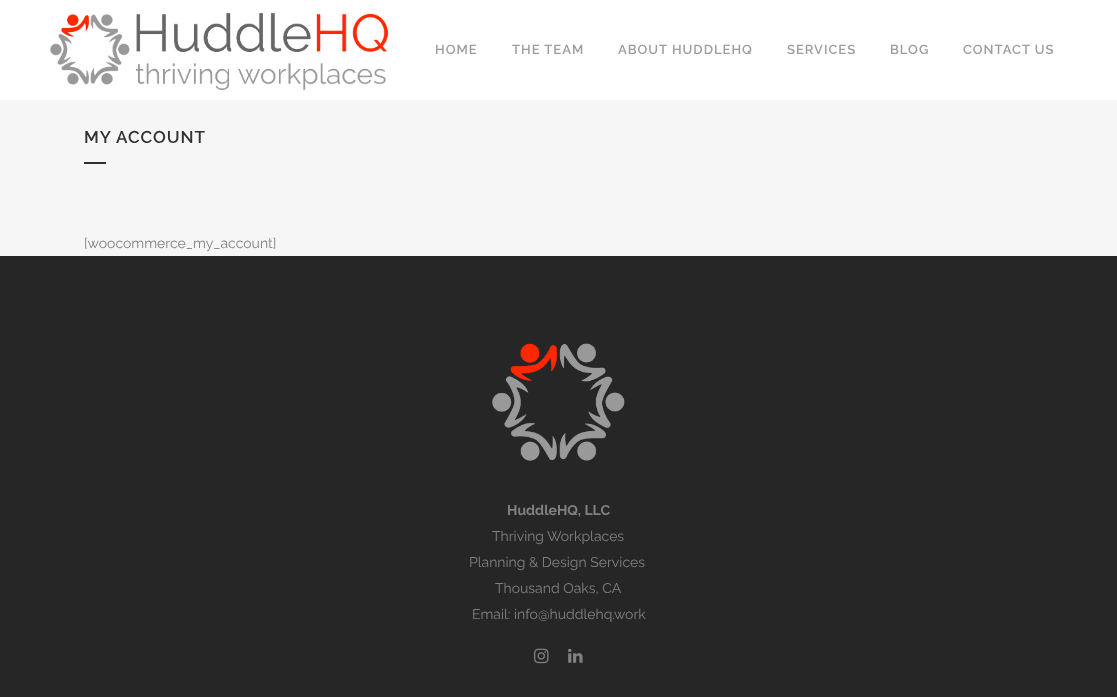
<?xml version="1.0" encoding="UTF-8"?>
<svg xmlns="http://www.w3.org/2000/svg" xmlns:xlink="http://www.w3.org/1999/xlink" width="1117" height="697">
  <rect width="100%" height="100%" fill="#f6f6f6" />
  <rect width="1117" height="100" fill="#ffffff" />
  <image x="50" y="12" width="339" height="79" xlink:href="image1.png" />
  <rect x="84" y="162" width="22" height="2" fill="#303030" />
  <rect y="256" width="1117" height="441" fill="#262626" />
  <image x="492" y="343" width="133" height="118" xlink:href="image2.png" />
  <image x="534" y="648" width="15" height="16" xlink:href="image3.png" />
  <image x="568" y="648" width="15" height="15" xlink:href="image4.png" />
  <text x="435" y="54" style="font-family: Raleway; font-size: 13px; font-weight: 600; letter-spacing: 1px; fill: #9d9d9d">HOME</text>
  <text x="512" y="54" style="font-family: Raleway; font-size: 13px; font-weight: 600; letter-spacing: 1px; fill: #9d9d9d">THE TEAM</text>
  <text x="618" y="54" style="font-family: Raleway; font-size: 13px; font-weight: 600; letter-spacing: 1px; fill: #9d9d9d">ABOUT HUDDLEHQ</text>
  <text x="787" y="54" style="font-family: Raleway; font-size: 13px; font-weight: 600; letter-spacing: 1px; fill: #9d9d9d">SERVICES</text>
  <text x="890" y="54" style="font-family: Raleway; font-size: 13px; font-weight: 600; letter-spacing: 1px; fill: #9d9d9d">BLOG</text>
  <text x="963" y="54" style="font-family: Raleway; font-size: 13px; font-weight: 600; letter-spacing: 1px; fill: #9d9d9d">CONTACT US</text>
  <text x="84" y="143" style="font-family: Raleway; font-size: 17px; font-weight: 600; letter-spacing: 1px; fill: #303030">MY ACCOUNT</text>
  <text x="84" y="248" style="font-family: Raleway; font-size: 14px; fill: #818181">[woocommerce_my_account]</text>
  <text x="507" y="515" style="font-family: Raleway; font-size: 14px; font-weight: bold; fill: #818181">HuddleHQ, LLC</text>
  <text x="492" y="541" style="font-family: Raleway; font-size: 14px; fill: #818181">Thriving Workplaces</text>
  <text x="469" y="567" style="font-family: Raleway; font-size: 14px; fill: #818181">Planning &amp; Design Services</text>
  <text x="495" y="593" style="font-family: Raleway; font-size: 14px; fill: #818181">Thousand Oaks, CA</text>
  <text x="472" y="619" style="font-family: Raleway; font-size: 14px; fill: #818181">Email: info@huddlehq.work</text>
</svg>
